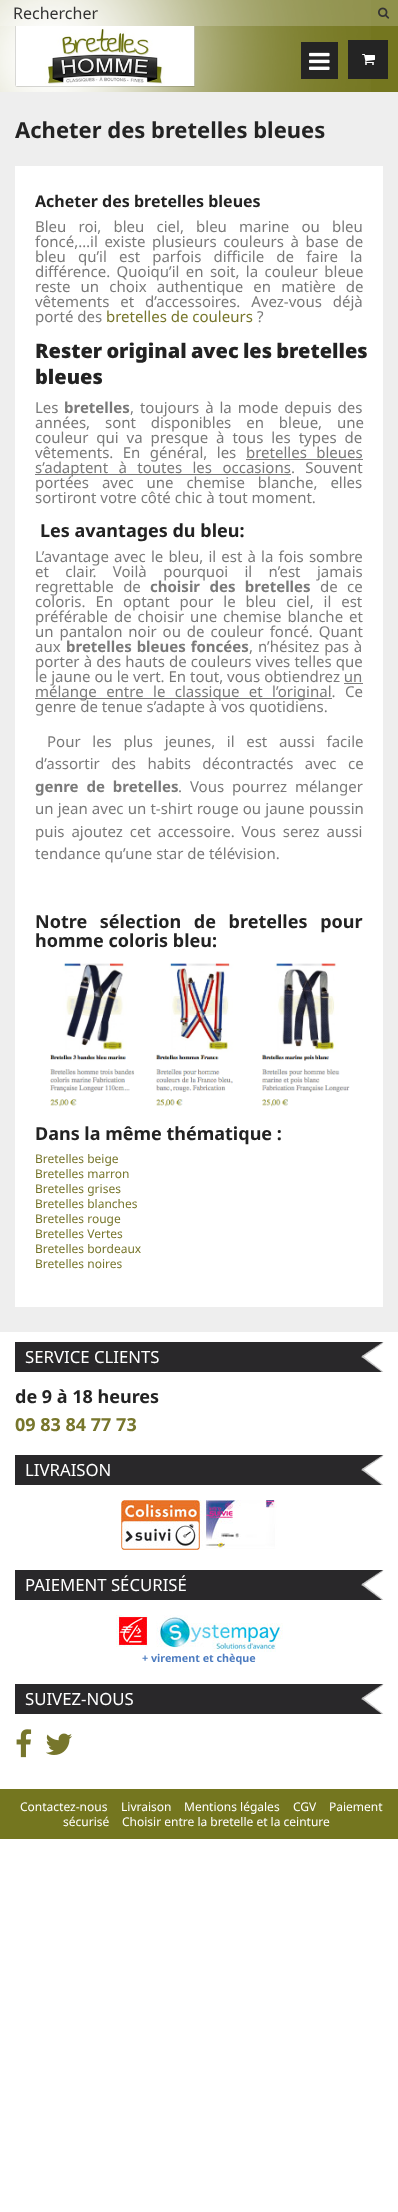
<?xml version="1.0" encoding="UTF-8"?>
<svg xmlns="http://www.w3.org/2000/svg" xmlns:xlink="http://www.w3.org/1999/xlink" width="398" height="2212">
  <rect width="100%" height="100%" fill="#ffffff" />
  <rect width="398" height="92" fill="#74761f" />
  <image x="0" y="0" width="371" height="92" xlink:href="image1.png" />
  <rect width="398" height="26" fill="#ffffff" fill-opacity="0.2" />
  <image x="378" y="7" width="12" height="12" xlink:href="image2.png" />
  <image x="15" y="26" width="180" height="61" xlink:href="image3.png" />
  <rect x="301" y="42" width="37" height="37" fill="#242424" />
  <image x="309" y="52" width="21" height="18" xlink:href="image4.png" />
  <rect x="348" y="40" width="40" height="39" fill="#242424" />
  <image x="362" y="54" width="13" height="11" xlink:href="image5.png" />
  <rect y="92" width="398" height="1240" fill="#eeeeee" />
  <rect x="15" y="166" width="368" height="1141" fill="#ffffff" />
  <rect x="246" y="459" width="117" height="1" fill="#7a7a7a" />
  <rect x="35" y="474" width="256" height="1" fill="#7a7a7a" />
  <rect x="344" y="683" width="19" height="1" fill="#7a7a7a" />
  <rect x="35" y="698" width="297" height="1" fill="#7a7a7a" />
  <image x="50" y="963" width="300" height="144" xlink:href="image6.png" />
  <rect x="15" y="1342" width="368" height="30" fill="#29282a" />
  <image x="361" y="1342" width="23" height="30" xlink:href="image7.png" />
  <rect x="15" y="1455" width="368" height="30" fill="#29282a" />
  <image x="361" y="1455" width="23" height="30" xlink:href="image7.png" />
  <image x="121" y="1500" width="156" height="50" xlink:href="image8.png" />
  <rect x="15" y="1570" width="368" height="30" fill="#29282a" />
  <image x="361" y="1570" width="23" height="30" xlink:href="image7.png" />
  <image x="116" y="1615" width="167" height="37" xlink:href="image9.png" />
  <rect x="15" y="1684" width="368" height="30" fill="#29282a" />
  <image x="361" y="1684" width="23" height="30" xlink:href="image7.png" />
  <image x="16" y="1729" width="16" height="29" xlink:href="image10.png" />
  <image x="46" y="1733" width="26" height="22" xlink:href="image11.png" />
  <rect y="1789" width="398" height="50" fill="#74761f" />
  <text x="13" y="19" style="font-family: Noto Sans; font-size: 16px; fill: #333333">Rechercher</text>
  <text x="15" y="138" style="font-family: Noto Sans; font-size: 22px; font-weight: bold; fill: #232323">Acheter des bretelles bleues</text>
  <text x="35" y="207" style="font-family: Noto Sans; font-size: 16px; font-weight: bold; fill: #232323">Acheter des bretelles bleues</text>
  <text x="35" y="232" word-spacing="8.25" style="font-family: Noto Sans; font-size: 15px; fill: #7a7a7a">Bleu roi, bleu ciel, bleu marine ou bleu</text>
  <text x="35" y="247" word-spacing="2.75" style="font-family: Noto Sans; font-size: 15px; fill: #7a7a7a">foncé,…il existe plusieurs couleurs à base de</text>
  <text x="35" y="262" word-spacing="8.25" style="font-family: Noto Sans; font-size: 15px; fill: #7a7a7a">bleu qu’il est parfois difficile de faire la</text>
  <text x="35" y="277" word-spacing="2.5" style="font-family: Noto Sans; font-size: 15px; fill: #7a7a7a">différence. Quoiqu’il en soit, la couleur bleue</text>
  <text x="35" y="292" word-spacing="6.25" style="font-family: Noto Sans; font-size: 15px; fill: #7a7a7a">reste un choix authentique en matière de</text>
  <text x="35" y="307" word-spacing="7" style="font-family: Noto Sans; font-size: 15px; fill: #7a7a7a">vêtements et d’accessoires. Avez-vous déjà</text>
  <text x="35" y="322" style="font-family: Noto Sans; font-size: 15px; fill: #7a7a7a">porté des</text>
  <text x="106" y="322" style="font-family: Noto Sans; font-size: 15px; fill: #77762c">bretelles de couleurs</text>
  <text x="257" y="322" style="font-family: Noto Sans; font-size: 15px; fill: #7a7a7a">?</text>
  <text x="35" y="358" word-spacing="-1" style="font-family: Noto Sans; font-size: 20px; font-weight: 900; fill: #232323">Rester original avec les bretelles</text>
  <text x="35" y="384" style="font-family: Noto Sans; font-size: 20px; font-weight: 900; fill: #232323">bleues</text>
  <text x="35" y="413" style="font-family: Noto Sans; font-size: 15px; fill: #7a7a7a">Les</text>
  <text x="64" y="413" style="font-family: Noto Sans; font-size: 15px; font-weight: bold; fill: #7a7a7a">bretelles</text>
  <text x="130" y="413" word-spacing="2" style="font-family: Noto Sans; font-size: 15px; fill: #7a7a7a">, toujours à la mode depuis des</text>
  <text x="35" y="428" word-spacing="11" style="font-family: Noto Sans; font-size: 15px; fill: #7a7a7a">années, sont disponibles en bleue, une</text>
  <text x="35" y="443" word-spacing="4" style="font-family: Noto Sans; font-size: 15px; fill: #7a7a7a">couleur qui va presque à tous les types de</text>
  <text x="35" y="458" word-spacing="5.5" style="font-family: Noto Sans; font-size: 15px; fill: #7a7a7a">vêtements. En général, les</text>
  <text x="246" y="458" word-spacing="5.5" style="font-family: Noto Sans; font-size: 15px; fill: #7a7a7a">bretelles bleues</text>
  <text x="35" y="473" word-spacing="6.5" style="font-family: Noto Sans; font-size: 15px; fill: #7a7a7a">s’adaptent à toutes les occasions. Souvent</text>
  <text x="35" y="488" word-spacing="9" style="font-family: Noto Sans; font-size: 15px; fill: #7a7a7a">portées avec une chemise blanche, elles</text>
  <text x="35" y="503" style="font-family: Noto Sans; font-size: 15px; fill: #7a7a7a">sortiront votre côté chic à tout moment.</text>
  <text x="40" y="537" style="font-family: Noto Sans; font-size: 18px; font-weight: bold; fill: #232323">Les avantages du bleu:</text>
  <text x="35" y="562" word-spacing="1.25" style="font-family: Noto Sans; font-size: 15px; fill: #7a7a7a">L’avantage avec le bleu, il est à la fois sombre</text>
  <text x="35" y="577" word-spacing="12.5" style="font-family: Noto Sans; font-size: 15px; fill: #7a7a7a">et clair. Voilà pourquoi il n’est jamais</text>
  <text x="35" y="592" word-spacing="5.5" style="font-family: Noto Sans; font-size: 15px; fill: #7a7a7a">regrettable de</text>
  <text x="150" y="592" word-spacing="5.5" style="font-family: Noto Sans; font-size: 15px; font-weight: bold; fill: #7a7a7a">choisir des bretelles</text>
  <text x="320" y="592" word-spacing="5.5" style="font-family: Noto Sans; font-size: 15px; fill: #7a7a7a">de ce</text>
  <text x="35" y="607" word-spacing="6" style="font-family: Noto Sans; font-size: 15px; fill: #7a7a7a">coloris. En optant pour le bleu ciel, il est</text>
  <text x="35" y="622" word-spacing="2" style="font-family: Noto Sans; font-size: 15px; fill: #7a7a7a">préférable de choisir une chemise blanche et</text>
  <text x="35" y="637" word-spacing="2" style="font-family: Noto Sans; font-size: 15px; fill: #7a7a7a">un pantalon noir ou de couleur foncé. Quant</text>
  <text x="35" y="652" style="font-family: Noto Sans; font-size: 15px; fill: #7a7a7a">aux</text>
  <text x="66" y="652" word-spacing="1" style="font-family: Noto Sans; font-size: 15px; font-weight: bold; fill: #7a7a7a">bretelles bleues foncées</text>
  <text x="249" y="652" word-spacing="1" style="font-family: Noto Sans; font-size: 15px; fill: #7a7a7a">, n’hésitez pas à</text>
  <text x="35" y="667" word-spacing="0.25" style="font-family: Noto Sans; font-size: 15px; fill: #7a7a7a">porter à des hauts de couleurs vives telles que</text>
  <text x="35" y="682" style="font-family: Noto Sans; font-size: 15px; fill: #7a7a7a">le jaune ou le vert. En tout, vous obtiendrez un</text>
  <text x="35" y="697" word-spacing="5.5" style="font-family: Noto Sans; font-size: 15px; fill: #7a7a7a">mélange entre le classique et l’original. Ce</text>
  <text x="35" y="712" style="font-family: Noto Sans; font-size: 15px; fill: #7a7a7a">genre de tenue s’adapte à vos quotidiens.</text>
  <text x="47" y="747" word-spacing="7.75" style="font-family: Noto Sans; font-size: 15px; fill: #7a7a7a">Pour les plus jeunes, il est aussi facile</text>
  <text x="35" y="769" word-spacing="7.5" style="font-family: Noto Sans; font-size: 15px; fill: #7a7a7a">d’assortir des habits décontractés avec ce</text>
  <text x="35" y="792" word-spacing="4" style="font-family: Noto Sans; font-size: 15px; font-weight: bold; fill: #7a7a7a">genre de bretelles</text>
  <text x="178" y="792" word-spacing="4" style="font-family: Noto Sans; font-size: 15px; fill: #7a7a7a">. Vous pourrez mélanger</text>
  <text x="35" y="814" word-spacing="0.25" style="font-family: Noto Sans; font-size: 15px; fill: #7a7a7a">un jean avec un t-shirt rouge ou jaune poussin</text>
  <text x="35" y="837" word-spacing="3" style="font-family: Noto Sans; font-size: 15px; fill: #7a7a7a">puis ajoutez cet accessoire. Vous serez aussi</text>
  <text x="35" y="859" style="font-family: Noto Sans; font-size: 15px; fill: #7a7a7a">tendance qu’une star de télévision.</text>
  <text x="35" y="928" word-spacing="8" style="font-family: Noto Sans; font-size: 18px; font-weight: bold; fill: #232323">Notre sélection de bretelles pour</text>
  <text x="35" y="947" style="font-family: Noto Sans; font-size: 18px; font-weight: bold; fill: #232323">homme coloris bleu:</text>
  <text x="35" y="1140" style="font-family: Noto Sans; font-size: 18px; font-weight: bold; fill: #232323">Dans la même thématique :</text>
  <text x="35" y="1163" style="font-family: Noto Sans; font-size: 12px; fill: #77762c">Bretelles beige</text>
  <text x="35" y="1178" style="font-family: Noto Sans; font-size: 12px; fill: #77762c">Bretelles marron</text>
  <text x="35" y="1193" style="font-family: Noto Sans; font-size: 12px; fill: #77762c">Bretelles grises</text>
  <text x="35" y="1208" style="font-family: Noto Sans; font-size: 12px; fill: #77762c">Bretelles blanches</text>
  <text x="35" y="1223" style="font-family: Noto Sans; font-size: 12px; fill: #77762c">Bretelles rouge</text>
  <text x="35" y="1238" style="font-family: Noto Sans; font-size: 12px; fill: #77762c">Bretelles Vertes</text>
  <text x="35" y="1253" style="font-family: Noto Sans; font-size: 12px; fill: #77762c">Bretelles bordeaux</text>
  <text x="35" y="1268" style="font-family: Noto Sans; font-size: 12px; fill: #77762c">Bretelles noires</text>
  <text x="25" y="1363" style="font-family: Noto Sans; font-size: 16.75px; fill: #ffffff">SERVICE CLIENTS</text>
  <text x="15" y="1403" style="font-family: Noto Sans; font-size: 18px; font-weight: bold; fill: #232323">de 9 à 18 heures</text>
  <text x="15" y="1431" style="font-family: Noto Sans; font-size: 18px; font-weight: bold; fill: #77762c">09 83 84 77 73</text>
  <text x="25" y="1476" style="font-family: Noto Sans; font-size: 16.75px; fill: #ffffff">LIVRAISON</text>
  <text x="25" y="1591" style="font-family: Noto Sans; font-size: 16.75px; fill: #ffffff">PAIEMENT SÉCURISÉ</text>
  <text x="142" y="1662" style="font-family: Noto Sans; font-size: 10.75px; font-weight: bold; fill: #4d7cc0">+ virement et chèque</text>
  <text x="25" y="1705" style="font-family: Noto Sans; font-size: 16.75px; fill: #ffffff">SUIVEZ-NOUS</text>
  <text x="20" y="1811" style="font-family: Noto Sans; font-size: 12px; fill: #ffffff">Contactez-nous</text>
  <text x="121" y="1811" style="font-family: Noto Sans; font-size: 12px; fill: #ffffff">Livraison</text>
  <text x="184" y="1811" style="font-family: Noto Sans; font-size: 12px; fill: #ffffff">Mentions légales</text>
  <text x="293" y="1811" style="font-family: Noto Sans; font-size: 12px; fill: #ffffff">CGV</text>
  <text x="329" y="1811" style="font-family: Noto Sans; font-size: 12px; fill: #ffffff">Paiement</text>
  <text x="63" y="1826" style="font-family: Noto Sans; font-size: 12px; fill: #ffffff">sécurisé</text>
  <text x="122" y="1826" style="font-family: Noto Sans; font-size: 12px; fill: #ffffff">Choisir entre la bretelle et la ceinture</text>
</svg>
